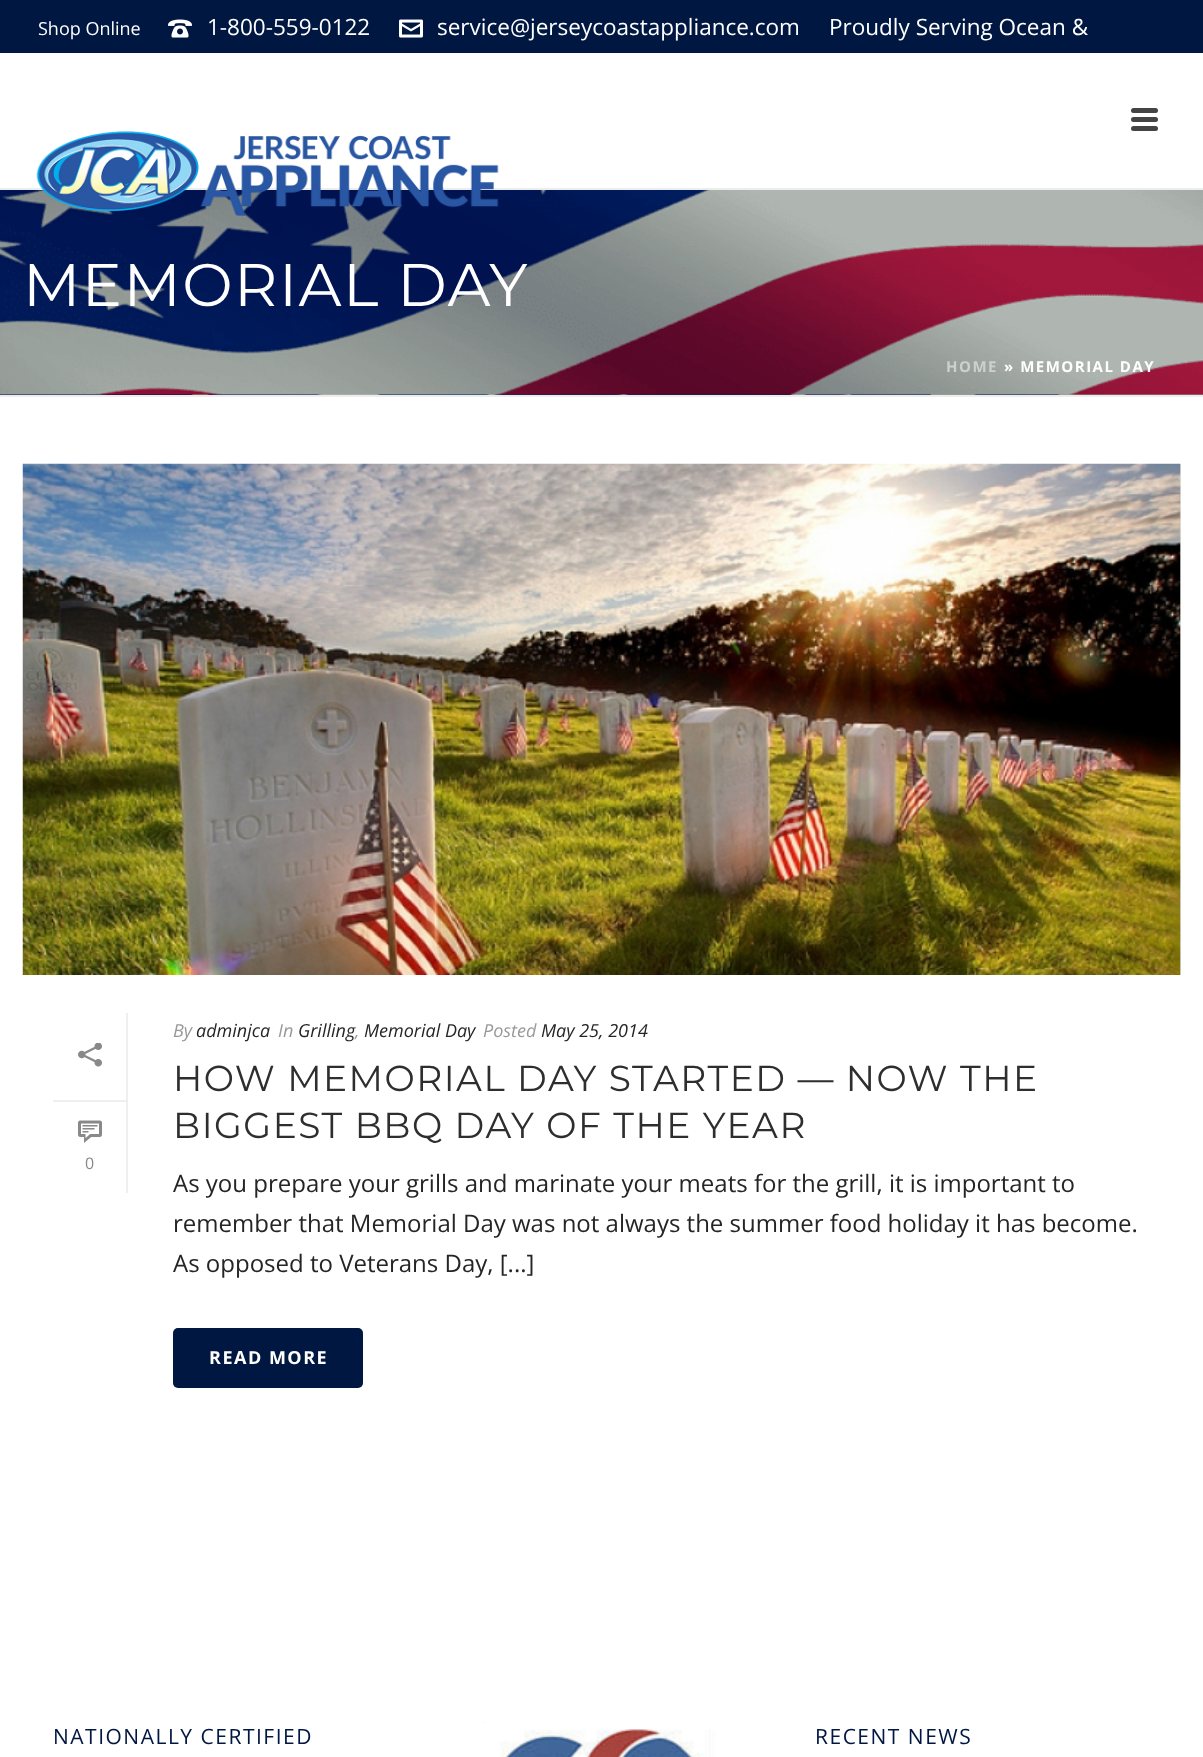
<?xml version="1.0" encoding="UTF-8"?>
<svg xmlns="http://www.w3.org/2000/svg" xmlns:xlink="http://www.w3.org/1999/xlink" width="1203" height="1757">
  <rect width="100%" height="100%" fill="#ffffff" />
  <image x="0" y="190" width="1203" height="205" xlink:href="image1.png" />
  <rect y="395" width="1203" height="2" fill="#ededed" />
  <rect width="1203" height="53" fill="#001741" />
  <image x="168" y="19" width="24" height="19" xlink:href="image2.png" />
  <image x="399" y="19" width="24" height="19" xlink:href="image3.png" />
  <rect y="188" width="1203" height="2" fill="#ededed" />
  <rect x="1131" y="108" width="27" height="5" rx="2.5" fill="#444444" />
  <rect x="1131" y="117" width="27" height="5" rx="2.5" fill="#444444" />
  <rect x="1131" y="126" width="27" height="5" rx="2.5" fill="#444444" />
  <image x="36" y="131" width="463" height="85" xlink:href="image4.png" />
  <rect x="1180" y="464" width="1" height="511" fill="#e0e0e0" />
  <image x="22" y="463" width="1159" height="512" xlink:href="image5.png" />
  <rect x="126" y="1013" width="2" height="180" fill="#efefef" />
  <rect x="53" y="1100" width="73" height="2" fill="#efefef" />
  <image x="78" y="1043" width="24" height="24" xlink:href="image6.png" />
  <image x="78" y="1120" width="24" height="23" xlink:href="image7.png" />
  <rect x="173" y="1328" width="190" height="60" rx="5" fill="#001741" />
  <image x="473" y="1721" width="251" height="36" xlink:href="image8.png" />
  <text x="38" y="35" style="font-family: Open Sans; font-size: 18px; fill: #ffffff">Shop Online</text>
  <text x="207" y="35" style="font-family: Open Sans; font-size: 22.5px; fill: #ffffff">1-800-559-0122</text>
  <text x="437" y="35" style="font-family: Open Sans; font-size: 22.5px; fill: #ffffff">service@jerseycoastappliance.com</text>
  <text x="829" y="35" style="font-family: Open Sans; font-size: 22.5px; fill: #ffffff">Proudly Serving Ocean &amp;</text>
  <text x="23" y="306" style="font-family: Montserrat; font-size: 60px; letter-spacing: 1.5px; fill: #ffffff">MEMORIAL DAY</text>
  <text x="946" y="372" style="font-family: Open Sans; font-size: 15px; font-weight: bold; letter-spacing: 1.5px; fill: #cdd1ce">HOME</text>
  <text x="1004" y="372" style="font-family: Open Sans; font-size: 15px; font-weight: bold; letter-spacing: 1.5px; fill: #ffffff">» MEMORIAL DAY</text>
  <text x="85" y="1169" style="font-family: Open Sans; font-size: 16px; fill: #898989">0</text>
  <text x="173" y="1037" style="font-family: Open Sans; font-size: 18px; font-style: italic; fill: #999999">By</text>
  <text x="196" y="1037" style="font-family: Open Sans; font-size: 18px; font-style: italic; fill: #252525">adminjca</text>
  <text x="278" y="1037" style="font-family: Open Sans; font-size: 18px; font-style: italic; fill: #999999">In</text>
  <text x="298" y="1037" style="font-family: Open Sans; font-size: 18px; font-style: italic; fill: #252525">Grilling</text>
  <text x="364" y="1037" style="font-family: Open Sans; font-size: 18px; font-style: italic; fill: #252525">Memorial Day</text>
  <text x="355" y="1037" style="font-family: Open Sans; font-size: 18px; font-style: italic; fill: #999999">,</text>
  <text x="483" y="1037" style="font-family: Open Sans; font-size: 18px; font-style: italic; fill: #999999">Posted</text>
  <text x="541" y="1037" style="font-family: Open Sans; font-size: 18px; font-style: italic; fill: #252525">May 25, 2014</text>
  <text x="173" y="1091" style="font-family: Montserrat; font-size: 36px; letter-spacing: 1.5px; fill: #2e2e2e">HOW MEMORIAL DAY STARTED — NOW THE</text>
  <text x="173" y="1138" style="font-family: Montserrat; font-size: 36px; letter-spacing: 1.5px; fill: #2e2e2e">BIGGEST BBQ DAY OF THE YEAR</text>
  <text x="173" y="1192" style="font-family: Open Sans; font-size: 24px; fill: #252525">As you prepare your grills and marinate your meats for the grill, it is important to</text>
  <text x="173" y="1232" style="font-family: Open Sans; font-size: 24px; fill: #252525">remember that Memorial Day was not always the summer food holiday it has become.</text>
  <text x="173" y="1272" style="font-family: Open Sans; font-size: 24px; fill: #252525">As opposed to Veterans Day, [...]</text>
  <text x="209" y="1364" style="font-family: Open Sans; font-size: 18px; font-weight: bold; letter-spacing: 1.5px; fill: #ffffff">READ MORE</text>
  <text x="53" y="1744" style="font-family: Open Sans; font-size: 21px; letter-spacing: 1.5px; fill: #001741">NATIONALLY CERTIFIED</text>
  <text x="815" y="1744" style="font-family: Open Sans; font-size: 21px; letter-spacing: 1.5px; fill: #001741">RECENT NEWS</text>
</svg>
